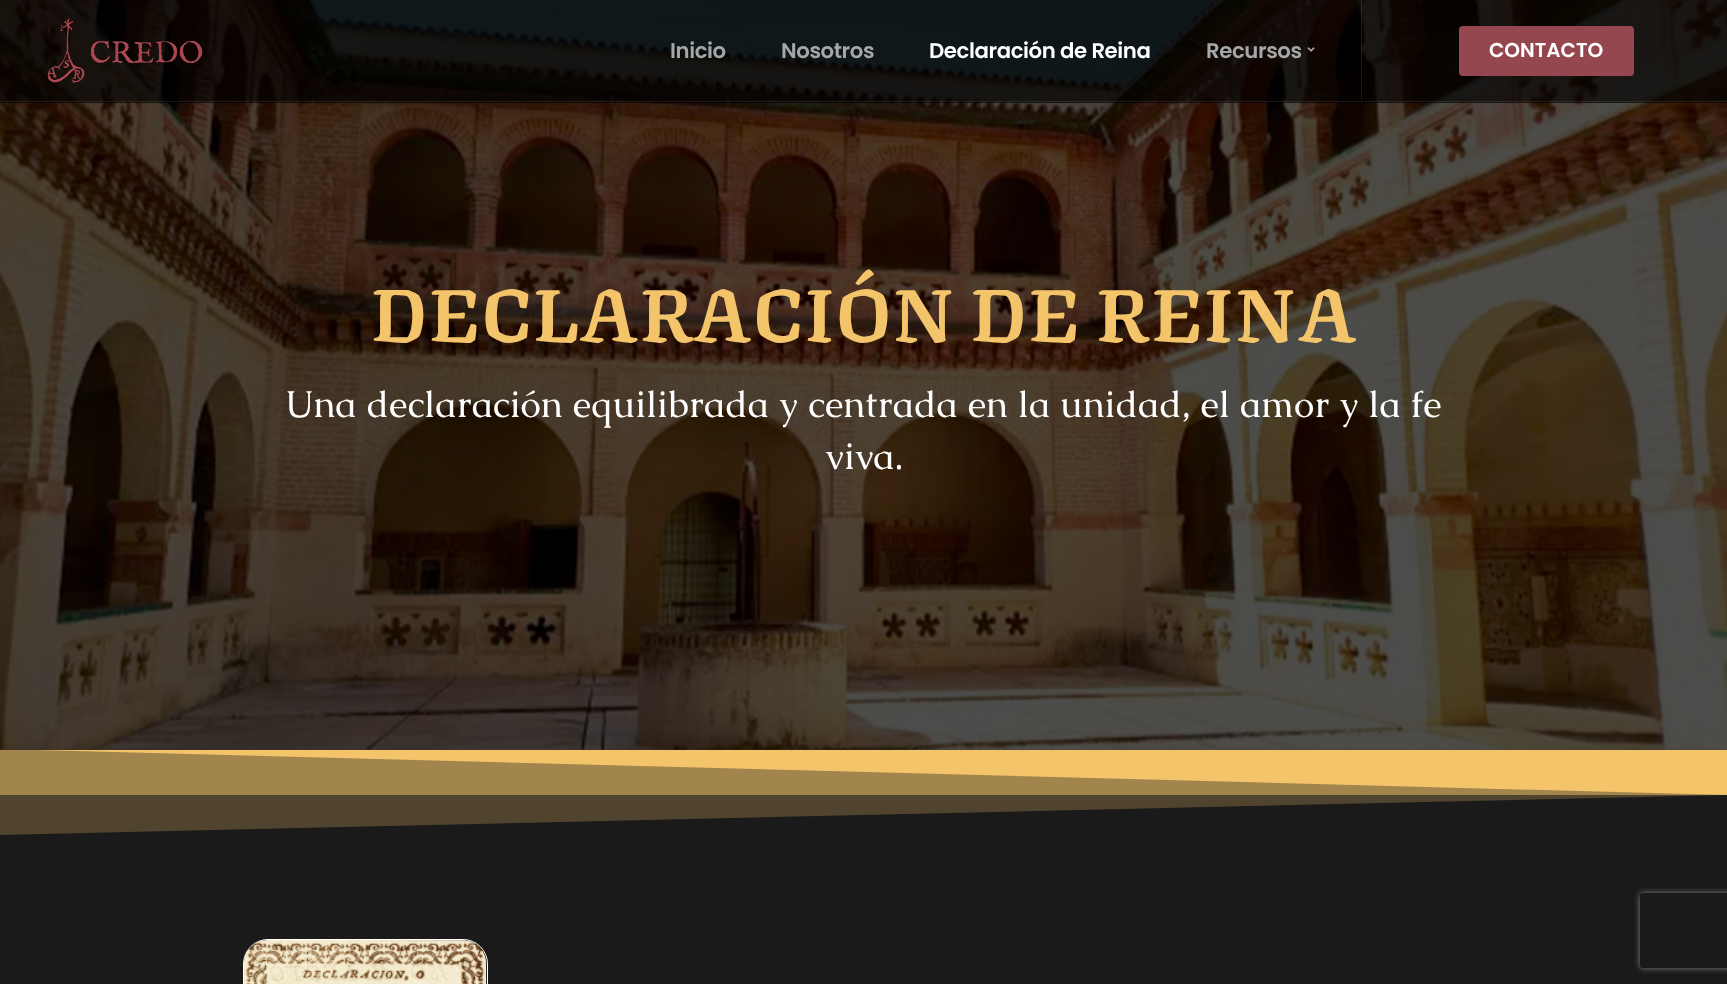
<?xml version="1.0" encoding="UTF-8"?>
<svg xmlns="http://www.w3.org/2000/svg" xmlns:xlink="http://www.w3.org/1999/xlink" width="1727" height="984">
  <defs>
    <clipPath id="clip1"><path d="M 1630 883 h 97 v 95 h -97 z m 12.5 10 h 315 c 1.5 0 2.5 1 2.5 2.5 v 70 c 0 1.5 -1 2.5 -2.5 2.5 h -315 c -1.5 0 -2.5 -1 -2.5 -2.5 v -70 c 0 -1.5 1 -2.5 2.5 -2.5 z" clip-rule="evenodd" /></clipPath>
  </defs>
  <rect width="100%" height="100%" fill="#ffffff" />
  <rect y="750" width="1727" height="45" fill="#876f43" />
  <path d="M -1 749 h 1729 v 46 z" fill="#f4c46b" />
  <rect y="795" width="1727" height="189" fill="#1a1a1a" />
  <path d="M 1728 749 h -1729 v 86 l 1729 -40 z" fill="#f4c46b" fill-opacity="0.25" />
  <image x="0" y="0" width="1727" height="750" xlink:href="image3.png" />
  <rect width="1727" height="750" fill="#000000" fill-opacity="0.7" />
  <rect width="1727" height="103" fill="#000000" fill-opacity="0.67" />
  <rect y="101" width="1727" height="1" fill="#ffffff" fill-opacity="0.09" />
  <image x="47" y="18" width="156" height="65" xlink:href="image1.png" />
  <rect x="1361" width="1" height="101" fill="#ffffff" fill-opacity="0.09" />
  <image x="1307" y="47" width="8" height="5" xlink:href="image2.png" />
  <rect x="1459" y="26" width="175" height="50" rx="4" fill="#95474f" />
  <rect x="243.5" y="939.5" width="244" height="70" rx="24.5" fill="none" stroke="#ffffff" />
  <image x="244" y="940" width="243" height="44" xlink:href="image4.png" />
  <g clip-path="url(#clip1)">
    <rect x="1640" y="893" width="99" height="75" rx="2.5" fill="#808080" filter="blur(3px)" />
  </g>
  <text x="670" y="58" style="font-family: Poppins; font-size: 21.25px; font-weight: 600; letter-spacing: -0.4px; fill: #a6a7a8">Inicio</text>
  <text x="781" y="58" style="font-family: Poppins; font-size: 21.25px; font-weight: 600; letter-spacing: -0.4px; fill: #a6a7a8">Nosotros</text>
  <text x="929" y="58" style="font-family: Poppins; font-size: 21.25px; font-weight: 600; letter-spacing: -0.4px; fill: #ffffff">Declaración de Reina</text>
  <text x="1206" y="58" style="font-family: Poppins; font-size: 21.25px; font-weight: 600; letter-spacing: -0.4px; fill: #a6a7a8">Recursos</text>
  <text x="1489" y="57" style="font-family: Poppins; font-size: 20px; font-weight: 600; fill: #ffffff">CONTACTO</text>
  <text x="370" y="343" style="font-family: Texturina; font-size: 75px; font-weight: bold; fill: #f4c46b">DECLARACIÓN DE REINA</text>
  <text x="285" y="417" style="font-family: Caudex; font-size: 37.5px; fill: #ffffff">Una declaración equilibrada y centrada en la unidad, el amor y la fe</text>
  <text x="825" y="469" style="font-family: Caudex; font-size: 37.5px; fill: #ffffff">viva.</text>
</svg>
